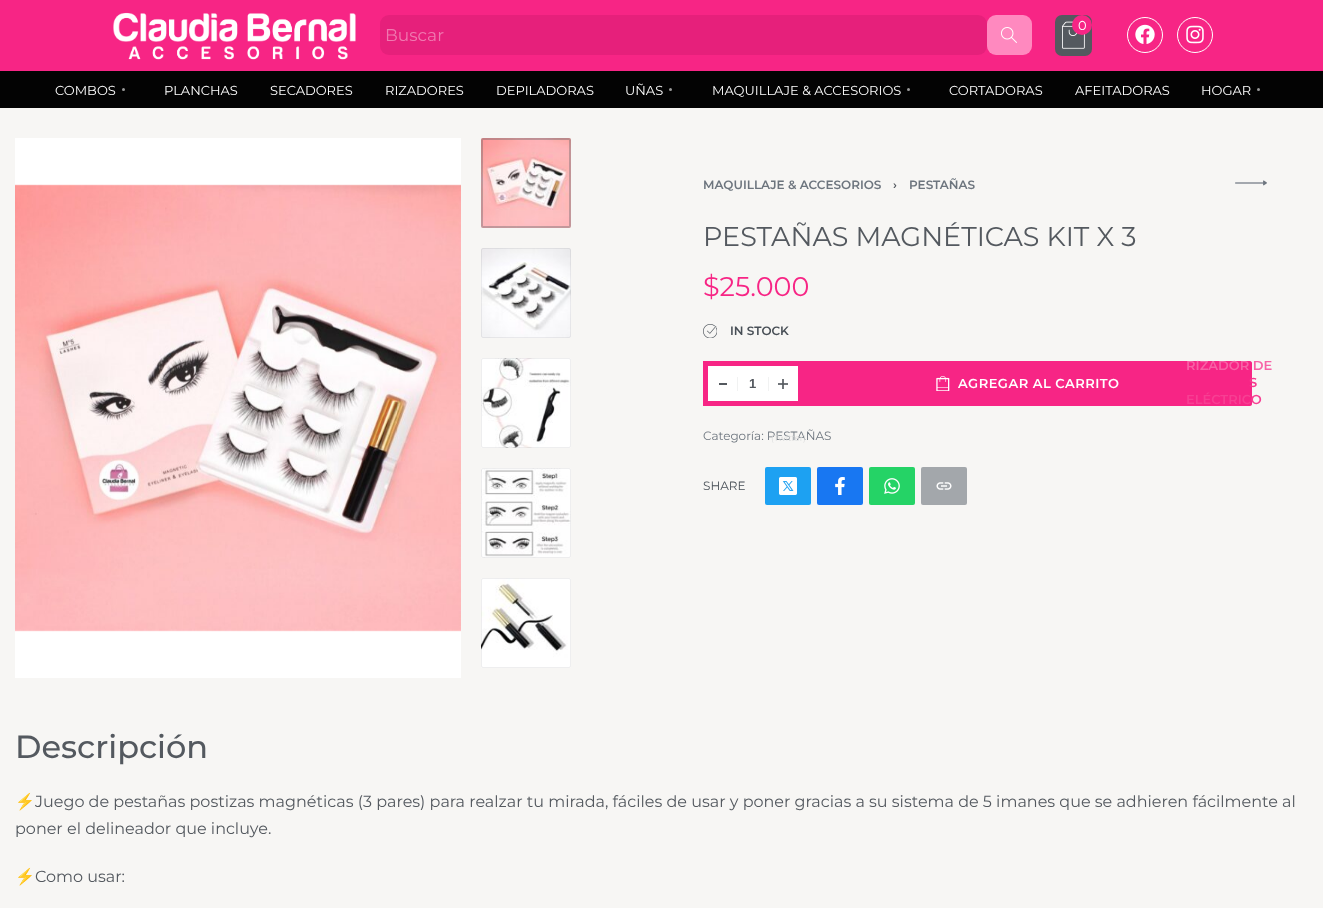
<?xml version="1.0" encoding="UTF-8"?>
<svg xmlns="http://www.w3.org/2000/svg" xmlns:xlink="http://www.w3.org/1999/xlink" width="1323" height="908">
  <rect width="100%" height="100%" fill="#f7f6f4" />
  <rect width="1323" height="71" fill="#f72585" />
  <image x="113" y="12" width="243" height="48" xlink:href="image1.png" />
  <rect x="1055" y="15" width="37" height="41" rx="7" fill="#54595f" />
  <image x="1062" y="21" width="23" height="28" xlink:href="image2.png" />
  <circle cx="1082" cy="25" r="10" fill="#f72585" />
  <circle cx="1145" cy="35" r="17.5" fill="none" stroke="#ffffff" />
  <image x="1135" y="24" width="20" height="20" xlink:href="image3.png" />
  <circle cx="1195" cy="35" r="17.5" fill="none" stroke="#ffffff" />
  <image x="1186" y="25" width="18" height="19" xlink:href="image4.png" />
  <rect x="380" y="15" width="607" height="40" rx="9" fill="#e6207b" />
  <rect x="987" y="15" width="45" height="40" rx="9" fill="#ff89bf" />
  <image x="1001" y="27" width="16" height="16" xlink:href="image5.png" />
  <rect y="71" width="1323" height="37" fill="#030303" />
  <circle cx="123.5" cy="89.5" r="1.5" fill="#9a9a9a" />
  <circle cx="670.5" cy="89.5" r="1.5" fill="#9a9a9a" />
  <circle cx="908.5" cy="89.5" r="1.5" fill="#9a9a9a" />
  <circle cx="1258.5" cy="89.5" r="1.5" fill="#9a9a9a" />
  <rect x="15" y="138" width="446" height="540" fill="#ffffff" />
  <image x="15" y="184" width="446" height="448" xlink:href="image6.png" />
  <image x="481" y="138" width="90" height="90" xlink:href="image7.png" />
  <rect x="482" y="139" width="88" height="88" rx="1" fill="none" stroke="#54595f" stroke-opacity="0.35" stroke-width="2" />
  <image x="481" y="248" width="90" height="90" xlink:href="image8.png" />
  <rect x="481.5" y="248.5" width="89" height="89" rx="1.5" fill="none" stroke="#54595f" stroke-opacity="0.1" />
  <image x="481" y="358" width="90" height="90" xlink:href="image9.png" />
  <rect x="481.5" y="358.5" width="89" height="89" rx="1.5" fill="none" stroke="#54595f" stroke-opacity="0.1" />
  <image x="481" y="468" width="90" height="90" xlink:href="image10.png" />
  <rect x="481.5" y="468.5" width="89" height="89" rx="1.5" fill="none" stroke="#54595f" stroke-opacity="0.1" />
  <image x="481" y="578" width="90" height="90" xlink:href="image11.png" />
  <rect x="481.5" y="578.5" width="89" height="89" rx="1.5" fill="none" stroke="#54595f" stroke-opacity="0.1" />
  <image x="703" y="324" width="14" height="14" xlink:href="image12.png" />
  <rect x="708" y="366" width="90" height="35" fill="#ffffff" />
  <path d="M 705.5 363.5 h 95 v 40 h -95 z" fill="none" stroke="#f72585" stroke-width="5" />
  <rect x="719" y="383" width="8" height="2" fill="#54595f" />
  <rect x="737" y="377" width="1" height="14" fill="#f1f2f2" />
  <rect x="768" y="377" width="1" height="14" fill="#f1f2f2" />
  <image x="778" y="379" width="10" height="10" xlink:href="image13.png" />
  <path d="M 803 361 h 447 c 1 0 2 1 2 2 v 41 c 0 1 -1 2 -2 2 h -447 z" fill="#f72585" />
  <image x="936" y="376" width="14" height="15" xlink:href="image14.png" />
  <image x="1235" y="180" width="32" height="6" xlink:href="image15.png" />
  <rect x="765" y="467" width="46" height="38" rx="2" fill="#1da1f2" />
  <image x="779" y="477" width="18" height="18" xlink:href="image16.png" />
  <rect x="817" y="467" width="46" height="38" rx="2" fill="#1877f2" />
  <image x="835" y="477" width="10" height="18" xlink:href="image17.png" />
  <rect x="869" y="467" width="46" height="38" rx="2" fill="#25d366" />
  <image x="884" y="478" width="16" height="16" xlink:href="image18.png" />
  <rect x="921" y="467" width="46" height="38" rx="2" fill="#a3a7ab" />
  <image x="936" y="482" width="16" height="8" xlink:href="image19.png" />
  <text x="1078" y="30" style="font-family: Montserrat; font-size: 13px; font-weight: 100; fill: #ffffff">0</text>
  <text x="385" y="41" style="font-family: Montserrat; font-size: 17px; font-weight: 100; fill: #f079b0">Buscar</text>
  <text x="55" y="95" style="font-family: Montserrat; font-size: 13px; font-weight: 100; fill: #ffffff">COMBOS</text>
  <text x="164" y="95" style="font-family: Montserrat; font-size: 13px; font-weight: 100; fill: #ffffff">PLANCHAS</text>
  <text x="270" y="95" style="font-family: Montserrat; font-size: 13px; font-weight: 100; fill: #ffffff">SECADORES</text>
  <text x="385" y="95" style="font-family: Montserrat; font-size: 13px; font-weight: 100; fill: #ffffff">RIZADORES</text>
  <text x="496" y="95" style="font-family: Montserrat; font-size: 13px; font-weight: 100; fill: #ffffff">DEPILADORAS</text>
  <text x="625" y="95" style="font-family: Montserrat; font-size: 13px; font-weight: 100; fill: #ffffff">UÑAS</text>
  <text x="712" y="95" style="font-family: Montserrat; font-size: 13px; font-weight: 100; fill: #ffffff">MAQUILLAJE &amp; ACCESORIOS</text>
  <text x="949" y="95" style="font-family: Montserrat; font-size: 13px; font-weight: 100; fill: #ffffff">CORTADORAS</text>
  <text x="1075" y="95" style="font-family: Montserrat; font-size: 13px; font-weight: 100; fill: #ffffff">AFEITADORAS</text>
  <text x="1201" y="95" style="font-family: Montserrat; font-size: 13px; font-weight: 100; fill: #ffffff">HOGAR</text>
  <text x="703" y="189" style="font-family: 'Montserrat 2'; font-size: 12px; font-weight: 100; fill: #6d757e">MAQUILLAJE &amp; ACCESORIOS</text>
  <text x="893" y="189" style="font-family: 'Montserrat 2'; font-size: 12px; font-weight: 100; fill: #54595f">›</text>
  <text x="909" y="189" style="font-family: 'Montserrat 2'; font-size: 12px; font-weight: 100; fill: #6d757e">PESTAÑAS</text>
  <text x="703" y="246" style="font-family: Montserrat; font-size: 27px; font-weight: 100; fill: #54595f">PESTAÑAS MAGNÉTICAS KIT X 3</text>
  <text x="703" y="296" style="font-family: Montserrat; font-size: 27px; font-weight: 100; fill: #f72585">$25.000</text>
  <text x="730" y="335" style="font-family: 'Montserrat 2'; font-size: 12px; font-weight: 100; fill: #484f56">IN STOCK</text>
  <text x="749" y="388" style="font-family: Liberation Sans; font-size: 13px; font-weight: bold; fill: #54595f">1</text>
  <text x="958" y="388" style="font-family: 'Montserrat 2'; font-size: 13px; font-weight: 100; letter-spacing: 0.5px; fill: #ffffff">AGREGAR AL CARRITO</text>
  <text x="1186" y="370" style="font-family: 'Montserrat 2'; font-size: 13px; font-weight: 100; fill: #f762a6">RIZADOR DE</text>
  <text x="1249" y="387" style="font-family: 'Montserrat 2'; font-size: 13px; font-weight: 100; fill: #f7388f">S</text>
  <text x="1186" y="404" style="font-family: 'Montserrat 2'; font-size: 13px; font-weight: 100; fill: #f73f93">ELÉCTRICO</text>
  <text x="703" y="440" style="font-family: Montserrat; font-size: 12px; font-weight: 100; fill: #6d757e">Categoría: PESTAÑAS</text>
  <text x="771" y="441" style="font-family: Montserrat; font-size: 8.5px; font-weight: 100; fill: #dcdddd">(Twitter)</text>
  <text x="703" y="490" style="font-family: Montserrat; font-size: 12px; font-weight: 100; fill: #484f56">SHARE</text>
  <text x="15" y="758" style="font-family: 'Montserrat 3'; font-size: 32px; font-weight: 100; fill: #54595f">Descripción</text>
  <text x="15" y="807" style="font-family: Noto Color Emoji; font-size: 16px; fill: #54595f">⚡</text>
  <text x="35" y="807" style="font-family: Montserrat; font-size: 16px; font-weight: 100; fill: #54595f">Juego de pestañas postizas magnéticas (3 pares) para realzar tu mirada, fáciles de usar y poner gracias a su sistema de 5 imanes que se adhieren fácilmente al</text>
  <text x="15" y="834" style="font-family: Montserrat; font-size: 16px; font-weight: 100; fill: #54595f">poner el delineador que incluye.</text>
  <text x="15" y="882" style="font-family: Noto Color Emoji; font-size: 16px; fill: #54595f">⚡</text>
  <text x="35" y="882" style="font-family: Montserrat; font-size: 16px; font-weight: 100; fill: #54595f">Como usar:</text>
</svg>
